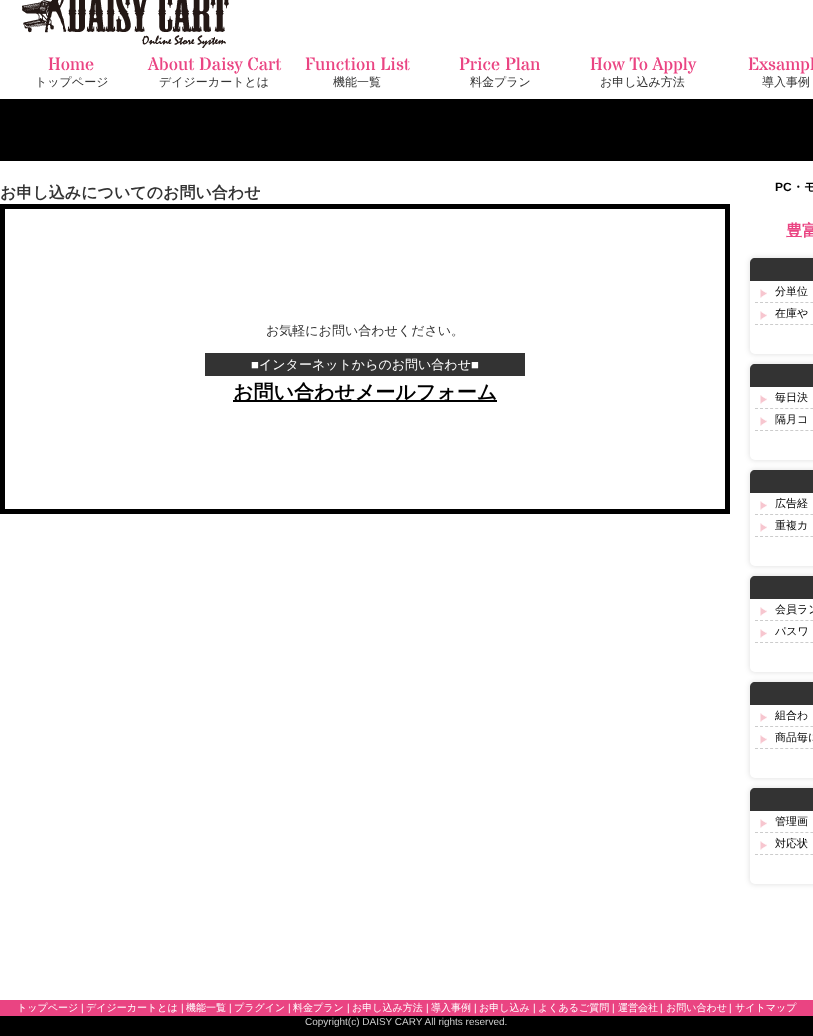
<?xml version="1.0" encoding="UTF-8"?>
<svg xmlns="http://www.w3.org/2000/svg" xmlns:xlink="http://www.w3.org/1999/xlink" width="813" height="1036">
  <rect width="100%" height="100%" fill="#ffffff" />
  <image x="22" y="0" width="207" height="48" xlink:href="image1.png" />
  <rect y="99" width="813" height="62" fill="#000000" />
  <rect x="2.5" y="206.5" width="725" height="305" fill="none" stroke="#000000" stroke-width="5" />
  <rect x="205" y="353" width="320" height="23" fill="#333333" />
  <rect x="233" y="400" width="264" height="2" fill="#000000" />
  <rect x="749" y="257" width="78" height="98" rx="6" fill="#000000" fill-opacity="0.1" filter="blur(2.5px)" />
  <rect x="750" y="258" width="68" height="96" rx="5" fill="#ffffff" />
  <path d="M 755 258 h 58 c 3 0 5 2 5 5 v 18 h -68 v -18 c 0 -3 2 -5 5 -5 z" fill="#333333" />
  <image x="760" y="289" width="7" height="9" xlink:href="image2.png" />
  <path d="M 755 302.5 h 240" fill="none" stroke="#cccccc" stroke-dasharray="3 2.04" />
  <image x="760" y="311" width="7" height="9" xlink:href="image2.png" />
  <path d="M 755 324.5 h 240" fill="none" stroke="#cccccc" stroke-dasharray="3 2.04" />
  <rect x="749" y="363" width="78" height="98" rx="6" fill="#000000" fill-opacity="0.1" filter="blur(2.5px)" />
  <rect x="750" y="364" width="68" height="96" rx="5" fill="#ffffff" />
  <path d="M 755 364 h 58 c 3 0 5 2 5 5 v 18 h -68 v -18 c 0 -3 2 -5 5 -5 z" fill="#333333" />
  <image x="760" y="395" width="7" height="9" xlink:href="image2.png" />
  <path d="M 755 408.5 h 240" fill="none" stroke="#cccccc" stroke-dasharray="3 2.04" />
  <image x="760" y="417" width="7" height="9" xlink:href="image2.png" />
  <path d="M 755 430.5 h 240" fill="none" stroke="#cccccc" stroke-dasharray="3 2.04" />
  <rect x="749" y="469" width="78" height="98" rx="6" fill="#000000" fill-opacity="0.1" filter="blur(2.5px)" />
  <rect x="750" y="470" width="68" height="96" rx="5" fill="#ffffff" />
  <path d="M 755 470 h 58 c 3 0 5 2 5 5 v 18 h -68 v -18 c 0 -3 2 -5 5 -5 z" fill="#333333" />
  <image x="760" y="501" width="7" height="9" xlink:href="image2.png" />
  <path d="M 755 514.5 h 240" fill="none" stroke="#cccccc" stroke-dasharray="3 2.04" />
  <image x="760" y="523" width="7" height="9" xlink:href="image2.png" />
  <path d="M 755 536.5 h 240" fill="none" stroke="#cccccc" stroke-dasharray="3 2.04" />
  <rect x="749" y="575" width="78" height="98" rx="6" fill="#000000" fill-opacity="0.1" filter="blur(2.5px)" />
  <rect x="750" y="576" width="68" height="96" rx="5" fill="#ffffff" />
  <path d="M 755 576 h 58 c 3 0 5 2 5 5 v 18 h -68 v -18 c 0 -3 2 -5 5 -5 z" fill="#333333" />
  <image x="760" y="607" width="7" height="9" xlink:href="image2.png" />
  <path d="M 755 620.5 h 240" fill="none" stroke="#cccccc" stroke-dasharray="3 2.04" />
  <image x="760" y="629" width="7" height="9" xlink:href="image2.png" />
  <path d="M 755 642.5 h 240" fill="none" stroke="#cccccc" stroke-dasharray="3 2.04" />
  <rect x="749" y="681" width="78" height="98" rx="6" fill="#000000" fill-opacity="0.1" filter="blur(2.5px)" />
  <rect x="750" y="682" width="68" height="96" rx="5" fill="#ffffff" />
  <path d="M 755 682 h 58 c 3 0 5 2 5 5 v 18 h -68 v -18 c 0 -3 2 -5 5 -5 z" fill="#333333" />
  <image x="760" y="713" width="7" height="9" xlink:href="image2.png" />
  <path d="M 755 726.5 h 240" fill="none" stroke="#cccccc" stroke-dasharray="3 2.04" />
  <image x="760" y="735" width="7" height="9" xlink:href="image2.png" />
  <path d="M 755 748.5 h 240" fill="none" stroke="#cccccc" stroke-dasharray="3 2.04" />
  <rect x="749" y="787" width="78" height="98" rx="6" fill="#000000" fill-opacity="0.1" filter="blur(2.5px)" />
  <rect x="750" y="788" width="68" height="96" rx="5" fill="#ffffff" />
  <path d="M 755 788 h 58 c 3 0 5 2 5 5 v 18 h -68 v -18 c 0 -3 2 -5 5 -5 z" fill="#333333" />
  <image x="760" y="819" width="7" height="9" xlink:href="image2.png" />
  <path d="M 755 832.5 h 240" fill="none" stroke="#cccccc" stroke-dasharray="3 2.04" />
  <image x="760" y="841" width="7" height="9" xlink:href="image2.png" />
  <path d="M 755 854.5 h 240" fill="none" stroke="#cccccc" stroke-dasharray="3 2.04" />
  <rect y="1000" width="813" height="16" fill="#ea4482" />
  <rect y="1016" width="813" height="20" fill="#000000" />
  <text x="48" y="70" style="font-family: Stardos Stencil; font-size: 18px; fill: #ea4482">Home</text>
  <text x="35" y="86" style="font-family: WenQuanYi Zen Hei; font-size: 12px; font-weight: 500; fill: #333333">トップページ</text>
  <text x="148" y="70" style="font-family: Stardos Stencil; font-size: 18px; fill: #ea4482">About Daisy Cart</text>
  <text x="159" y="86" style="font-family: WenQuanYi Zen Hei; font-size: 12px; font-weight: 500; fill: #333333">デイジーカートとは</text>
  <text x="305" y="70" style="font-family: Stardos Stencil; font-size: 18px; fill: #ea4482">Function List</text>
  <text x="333" y="86" style="font-family: WenQuanYi Zen Hei; font-size: 12px; font-weight: 500; fill: #333333">機能一覧</text>
  <text x="459" y="70" style="font-family: Stardos Stencil; font-size: 18px; fill: #ea4482">Price Plan</text>
  <text x="470" y="86" style="font-family: WenQuanYi Zen Hei; font-size: 12px; font-weight: 500; fill: #333333">料金プラン</text>
  <text x="590" y="70" style="font-family: Stardos Stencil; font-size: 18px; fill: #ea4482">How To Apply</text>
  <text x="600" y="86" style="font-family: WenQuanYi Zen Hei; font-size: 12px; font-weight: 500; fill: #333333">お申し込み方法</text>
  <text x="748" y="70" style="font-family: Stardos Stencil; font-size: 18px; fill: #ea4482">Exsampl</text>
  <text x="762" y="86" style="font-family: WenQuanYi Zen Hei; font-size: 12px; font-weight: 500; fill: #333333">導入事例</text>
  <text x="0" y="198" style="font-family: WenQuanYi Zen Hei; font-size: 16px; font-weight: bold; fill: #333333">お申し込みについてのお問い合わせ</text>
  <text x="266" y="335" style="font-family: WenQuanYi Zen Hei; font-size: 13px; font-weight: 500; fill: #333333">お気軽にお問い合わせください。</text>
  <text x="251" y="369" style="font-family: Liberation Sans; font-size: 13px; fill: #ffffff">■</text>
  <text x="259" y="369" style="font-family: WenQuanYi Zen Hei; font-size: 13px; font-weight: 500; fill: #ffffff">インターネットからのお問い合わせ</text>
  <text x="471" y="369" style="font-family: Liberation Sans; font-size: 13px; fill: #ffffff">■</text>
  <text x="233" y="399" style="font-family: WenQuanYi Zen Hei; font-size: 20px; font-weight: bold; fill: #000000">お問い合わせメールフォーム</text>
  <text x="775" y="191" style="font-family: Liberation Sans; font-size: 12px; font-weight: bold; fill: #000000">PC</text>
  <text x="792" y="191" style="font-family: WenQuanYi Zen Hei; font-size: 12px; font-weight: bold; fill: #000000">・モ</text>
  <text x="786" y="236" style="font-family: WenQuanYi Zen Hei; font-size: 16px; font-weight: bold; fill: #ea4482">豊富</text>
  <text x="775" y="295" style="font-family: WenQuanYi Zen Hei; font-size: 11px; font-weight: 500; fill: #000000">分単位</text>
  <text x="775" y="317" style="font-family: WenQuanYi Zen Hei; font-size: 11px; font-weight: 500; fill: #000000">在庫や</text>
  <text x="775" y="401" style="font-family: WenQuanYi Zen Hei; font-size: 11px; font-weight: 500; fill: #000000">毎日決</text>
  <text x="775" y="423" style="font-family: WenQuanYi Zen Hei; font-size: 11px; font-weight: 500; fill: #000000">隔月コ</text>
  <text x="775" y="507" style="font-family: WenQuanYi Zen Hei; font-size: 11px; font-weight: 500; fill: #000000">広告経</text>
  <text x="775" y="529" style="font-family: WenQuanYi Zen Hei; font-size: 11px; font-weight: 500; fill: #000000">重複カ</text>
  <text x="775" y="613" style="font-family: WenQuanYi Zen Hei; font-size: 11px; font-weight: 500; fill: #000000">会員ラン</text>
  <text x="775" y="635" style="font-family: WenQuanYi Zen Hei; font-size: 11px; font-weight: 500; fill: #000000">パスワ</text>
  <text x="775" y="719" style="font-family: WenQuanYi Zen Hei; font-size: 11px; font-weight: 500; fill: #000000">組合わ</text>
  <text x="775" y="741" style="font-family: WenQuanYi Zen Hei; font-size: 11px; font-weight: 500; fill: #000000">商品毎に</text>
  <text x="775" y="825" style="font-family: WenQuanYi Zen Hei; font-size: 11px; font-weight: 500; fill: #000000">管理画</text>
  <text x="775" y="847" style="font-family: WenQuanYi Zen Hei; font-size: 11px; font-weight: 500; fill: #000000">対応状</text>
  <text x="17" y="1011" style="font-family: WenQuanYi Zen Hei; font-size: 10px; font-weight: 500; fill: #ffffff">トップページ</text>
  <text x="81" y="1011" style="font-family: Liberation Sans; font-size: 10px; fill: #ffffff">|</text>
  <text x="86" y="1011" style="font-family: WenQuanYi Zen Hei; font-size: 10px; font-weight: 500; fill: #ffffff">デイジーカートとは</text>
  <text x="181" y="1011" style="font-family: Liberation Sans; font-size: 10px; fill: #ffffff">|</text>
  <text x="186" y="1011" style="font-family: WenQuanYi Zen Hei; font-size: 10px; font-weight: 500; fill: #ffffff">機能一覧</text>
  <text x="229" y="1011" style="font-family: Liberation Sans; font-size: 10px; fill: #ffffff">|</text>
  <text x="234" y="1011" style="font-family: WenQuanYi Zen Hei; font-size: 10px; font-weight: 500; fill: #ffffff">プラグイン</text>
  <text x="288" y="1011" style="font-family: Liberation Sans; font-size: 10px; fill: #ffffff">|</text>
  <text x="293" y="1011" style="font-family: WenQuanYi Zen Hei; font-size: 10px; font-weight: 500; fill: #ffffff">料金プラン</text>
  <text x="347" y="1011" style="font-family: Liberation Sans; font-size: 10px; fill: #ffffff">|</text>
  <text x="352" y="1011" style="font-family: WenQuanYi Zen Hei; font-size: 10px; font-weight: 500; fill: #ffffff">お申し込み方法</text>
  <text x="426" y="1011" style="font-family: Liberation Sans; font-size: 10px; fill: #ffffff">|</text>
  <text x="431" y="1011" style="font-family: WenQuanYi Zen Hei; font-size: 10px; font-weight: 500; fill: #ffffff">導入事例</text>
  <text x="474" y="1011" style="font-family: Liberation Sans; font-size: 10px; fill: #ffffff">|</text>
  <text x="479" y="1011" style="font-family: WenQuanYi Zen Hei; font-size: 10px; font-weight: 500; fill: #ffffff">お申し込み</text>
  <text x="533" y="1011" style="font-family: Liberation Sans; font-size: 10px; fill: #ffffff">|</text>
  <text x="538" y="1011" style="font-family: WenQuanYi Zen Hei; font-size: 10px; font-weight: 500; fill: #ffffff">よくあるご質問</text>
  <text x="612" y="1011" style="font-family: Liberation Sans; font-size: 10px; fill: #ffffff">|</text>
  <text x="618" y="1011" style="font-family: WenQuanYi Zen Hei; font-size: 10px; font-weight: 500; fill: #ffffff">運営会社</text>
  <text x="660" y="1011" style="font-family: Liberation Sans; font-size: 10px; fill: #ffffff">|</text>
  <text x="666" y="1011" style="font-family: WenQuanYi Zen Hei; font-size: 10px; font-weight: 500; fill: #ffffff">お問い合わせ</text>
  <text x="729" y="1011" style="font-family: Liberation Sans; font-size: 10px; fill: #ffffff">|</text>
  <text x="735" y="1011" style="font-family: WenQuanYi Zen Hei; font-size: 10px; font-weight: 500; fill: #ffffff">サイトマップ</text>
  <text x="305" y="1025" style="font-family: Liberation Sans; font-size: 10px; fill: #cccccc">Copyright(c) DAISY CARY All rights reserved.</text>
</svg>
